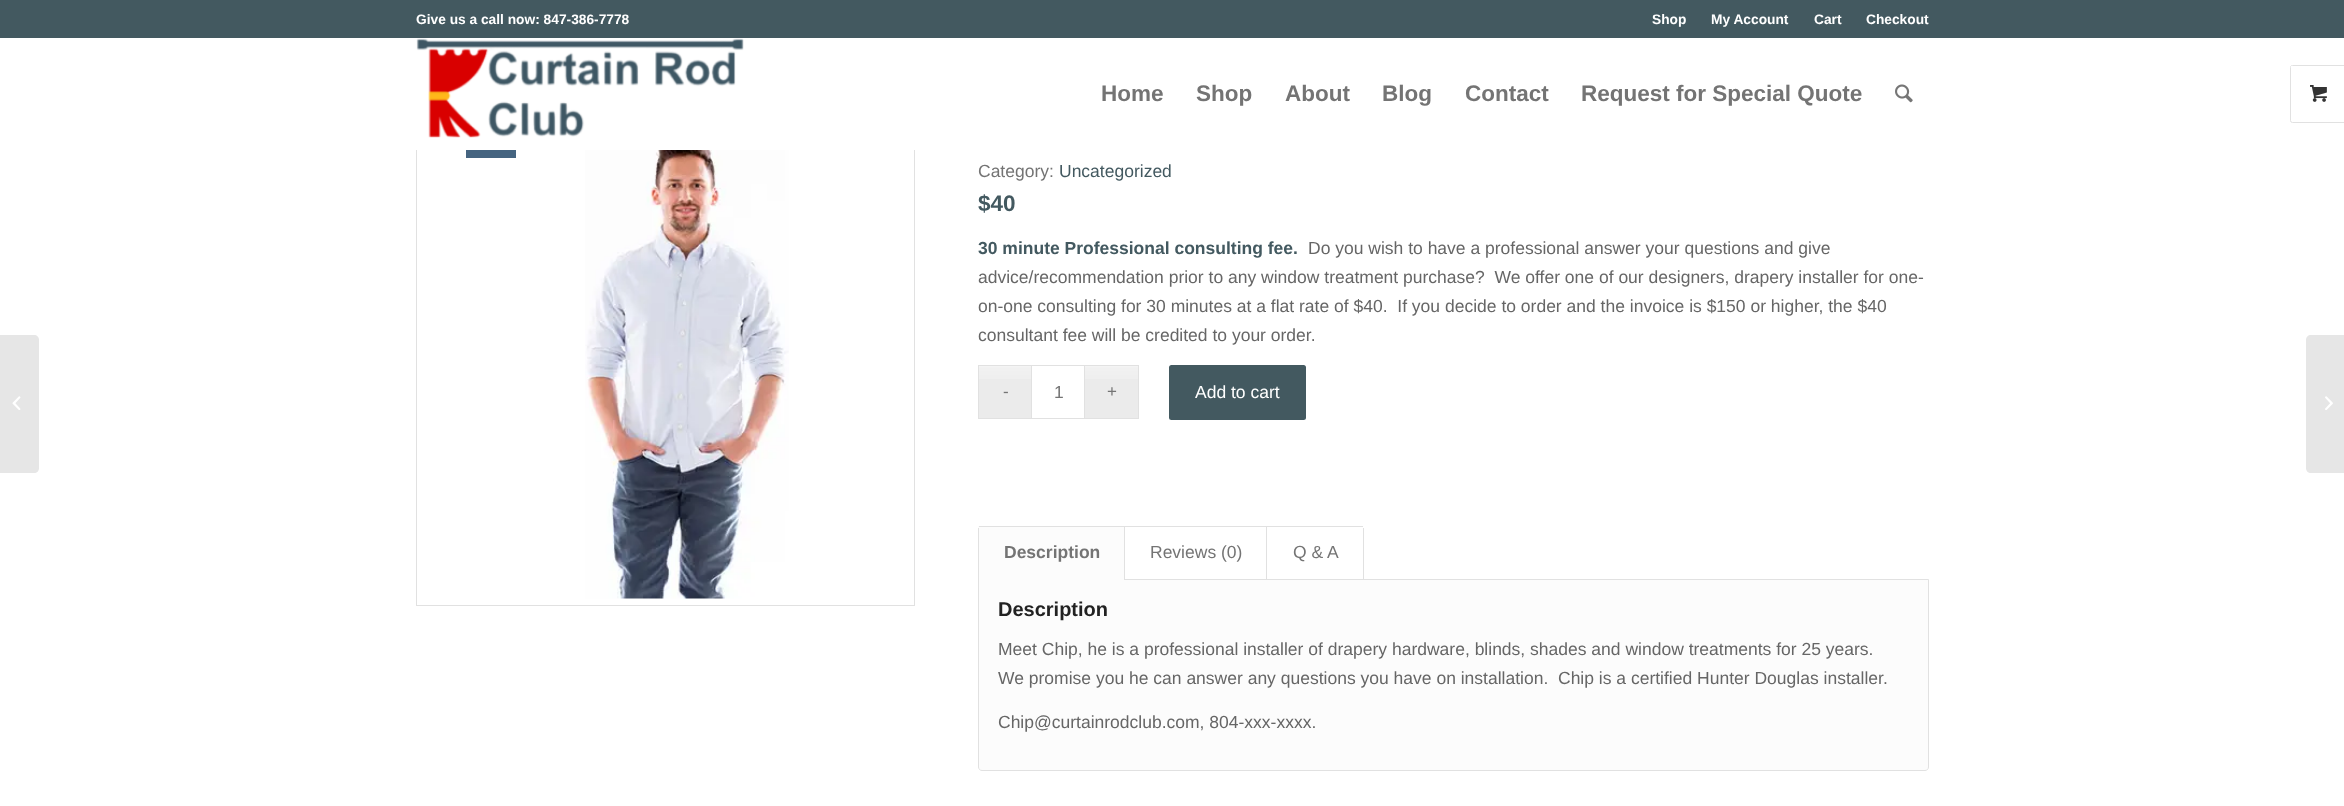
<?xml version="1.0" encoding="UTF-8"?>
<svg xmlns="http://www.w3.org/2000/svg" xmlns:xlink="http://www.w3.org/1999/xlink" width="2344" height="806">
  <rect width="100%" height="100%" fill="#ffffff" />
  <rect width="2344" height="38" fill="#435960" />
  <rect x="416.5" y="108.5" width="498" height="497" fill="none" stroke="#e1e1e1" />
  <rect x="416" y="108" width="499" height="42" fill="#ffffff" />
  <image x="416" y="38" width="328" height="100" xlink:href="image1.png" />
  <image x="1895" y="84" width="18" height="19" xlink:href="image2.png" />
  <rect x="2290.5" y="65.5" width="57" height="57" rx="2" fill="none" stroke="#e1e1e1" />
  <rect x="2291" y="66" width="1" height="1" fill="#ffffff" />
  <image x="2310" y="85" width="17" height="17" xlink:href="image3.png" />
  <path d="M 0 335 h 34 c 3 0 5 2 5 5 v 128 c 0 3 -2 5 -5 5 h -34 z" fill="#e6e6e6" />
  <image x="12" y="396" width="9" height="14" xlink:href="image4.png" />
  <image x="585" y="150" width="204" height="449" xlink:href="image5.png" />
  <rect x="466" y="150" width="50" height="8" fill="#456480" />
  <rect x="979" y="366" width="52" height="52" fill="#ebebeb" />
  <image x="979" y="366" width="52" height="13" xlink:href="image6.png" />
  <rect x="1085" y="366" width="53" height="52" fill="#ebebeb" />
  <image x="1085" y="366" width="53" height="13" xlink:href="image7.png" />
  <rect x="978" y="365" width="53" height="1" fill="#e1e1e1" />
  <rect x="978" y="418" width="53" height="1" fill="#e1e1e1" />
  <rect x="978" y="365" width="1" height="54" fill="#e1e1e1" />
  <rect x="1031.5" y="365.5" width="53" height="53" fill="none" stroke="#e1e1e1" />
  <rect x="1085" y="365" width="54" height="1" fill="#e1e1e1" />
  <rect x="1138" y="365" width="1" height="54" fill="#e1e1e1" />
  <rect x="1085" y="418" width="54" height="1" fill="#e1e1e1" />
  <rect x="1169" y="365" width="137" height="55" rx="2.5" fill="#435960" />
  <path d="M 978.5 579.5 h 950 v 187.5 c 0 2 -1.5 3.5 -3.5 3.5 h -943 c -2 0 -3.5 -1.5 -3.5 -3.5 z" fill="#fcfcfc" stroke="#e1e1e1" />
  <rect x="978" y="526" width="146" height="54" fill="#fcfcfc" />
  <rect x="1124" y="526" width="144" height="1" fill="#e1e1e1" />
  <rect x="979" y="526" width="146" height="1" fill="#e1e1e1" />
  <rect x="1124" y="526" width="1" height="54" fill="#e1e1e1" />
  <rect x="978" y="528" width="1" height="52" fill="#e1e1e1" />
  <rect x="1266" y="526" width="1" height="54" fill="#e1e1e1" />
  <rect x="1266" y="526" width="97" height="1" fill="#e1e1e1" />
  <rect x="1363" y="528" width="1" height="52" fill="#e1e1e1" />
  <path d="M 2311 335 h 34 v 138 h -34 c -3 0 -5 -2 -5 -5 v -128 c 0 -3 2 -5 5 -5 z" fill="#e6e6e6" />
  <image x="2325" y="396" width="8" height="14" xlink:href="image8.png" />
  <text x="416" y="24" style="font-family: Liberation Sans; font-size: 13.75px; font-weight: bold; fill: #ffffff">Give us a call now: 847-386-7778</text>
  <text x="1652" y="24" style="font-family: Liberation Sans; font-size: 13.75px; font-weight: bold; fill: #ffffff">Shop</text>
  <text x="1711" y="24" style="font-family: Liberation Sans; font-size: 13.75px; font-weight: bold; fill: #ffffff">My Account</text>
  <text x="1814" y="24" style="font-family: Liberation Sans; font-size: 13.75px; font-weight: bold; fill: #ffffff">Cart</text>
  <text x="1866" y="24" style="font-family: Liberation Sans; font-size: 13.75px; font-weight: bold; fill: #ffffff">Checkout</text>
  <text x="1101" y="101" style="font-family: Liberation Sans; font-size: 22.5px; font-weight: bold; fill: #747474">Home</text>
  <text x="1196" y="101" style="font-family: Liberation Sans; font-size: 22.5px; font-weight: bold; fill: #747474">Shop</text>
  <text x="1285" y="101" style="font-family: Liberation Sans; font-size: 22.5px; font-weight: bold; fill: #747474">About</text>
  <text x="1382" y="101" style="font-family: Liberation Sans; font-size: 22.5px; font-weight: bold; fill: #747474">Blog</text>
  <text x="1465" y="101" style="font-family: Liberation Sans; font-size: 22.5px; font-weight: bold; fill: #747474">Contact</text>
  <text x="1581" y="101" style="font-family: Liberation Sans; font-size: 22.5px; font-weight: bold; fill: #747474">Request for Special Quote</text>
  <text x="978" y="177" style="font-family: Liberation Sans; font-size: 17.5px; fill: #747474">Category:</text>
  <text x="1059" y="177" style="font-family: Liberation Sans; font-size: 17.5px; fill: #435960">Uncategorized</text>
  <text x="978" y="211" style="font-family: Liberation Sans; font-size: 22.5px; font-weight: bold; fill: #435960">$40</text>
  <text x="978" y="254" style="font-family: Liberation Sans; font-size: 17.5px; font-weight: bold; fill: #435960">30 minute Professional consulting fee.</text>
  <text x="1308" y="254" style="font-family: Liberation Sans; font-size: 17.5px; fill: #666666">Do you wish to have a professional answer your questions and give</text>
  <text x="978" y="283" style="font-family: Liberation Sans; font-size: 17.5px; fill: #666666" xml:space="preserve">advice/recommendation prior to any window treatment purchase?  We offer one of our designers, drapery installer for one-</text>
  <text x="978" y="312" style="font-family: Liberation Sans; font-size: 17.5px; fill: #666666" xml:space="preserve">on-one consulting for 30 minutes at a flat rate of $40.  If you decide to order and the invoice is $150 or higher, the $40</text>
  <text x="978" y="341" style="font-family: Liberation Sans; font-size: 17.5px; fill: #666666">consultant fee will be credited to your order.</text>
  <text x="1003" y="397" style="font-family: Liberation Sans; font-size: 17px; fill: #747474">-</text>
  <text x="1054" y="398" style="font-family: Liberation Sans; font-size: 17.5px; fill: #747474">1</text>
  <text x="1107" y="397" style="font-family: Liberation Sans; font-size: 17px; fill: #747474">+</text>
  <text x="1195" y="398" style="font-family: Liberation Sans; font-size: 17.5px; fill: #ffffff">Add to cart</text>
  <text x="1004" y="558" style="font-family: Liberation Sans; font-size: 17.5px; font-weight: bold; fill: #747474">Description</text>
  <text x="1150" y="558" style="font-family: Liberation Sans; font-size: 17.5px; fill: #747474">Reviews (0)</text>
  <text x="1293" y="558" style="font-family: Liberation Sans; font-size: 17.5px; fill: #747474">Q &amp; A</text>
  <text x="998" y="616" style="font-family: Liberation Sans; font-size: 20px; font-weight: bold; fill: #222222">Description</text>
  <text x="998" y="655" style="font-family: Liberation Sans; font-size: 17.5px; fill: #666666">Meet Chip, he is a professional installer of drapery hardware, blinds, shades and window treatments for 25 years.</text>
  <text x="998" y="684" style="font-family: Liberation Sans; font-size: 17.5px; fill: #666666" xml:space="preserve">We promise you he can answer any questions you have on installation.  Chip is a certified Hunter Douglas installer.</text>
  <text x="998" y="728" style="font-family: Liberation Sans; font-size: 17.5px; fill: #666666">Chip@curtainrodclub.com, 804-xxx-xxxx.</text>
</svg>
